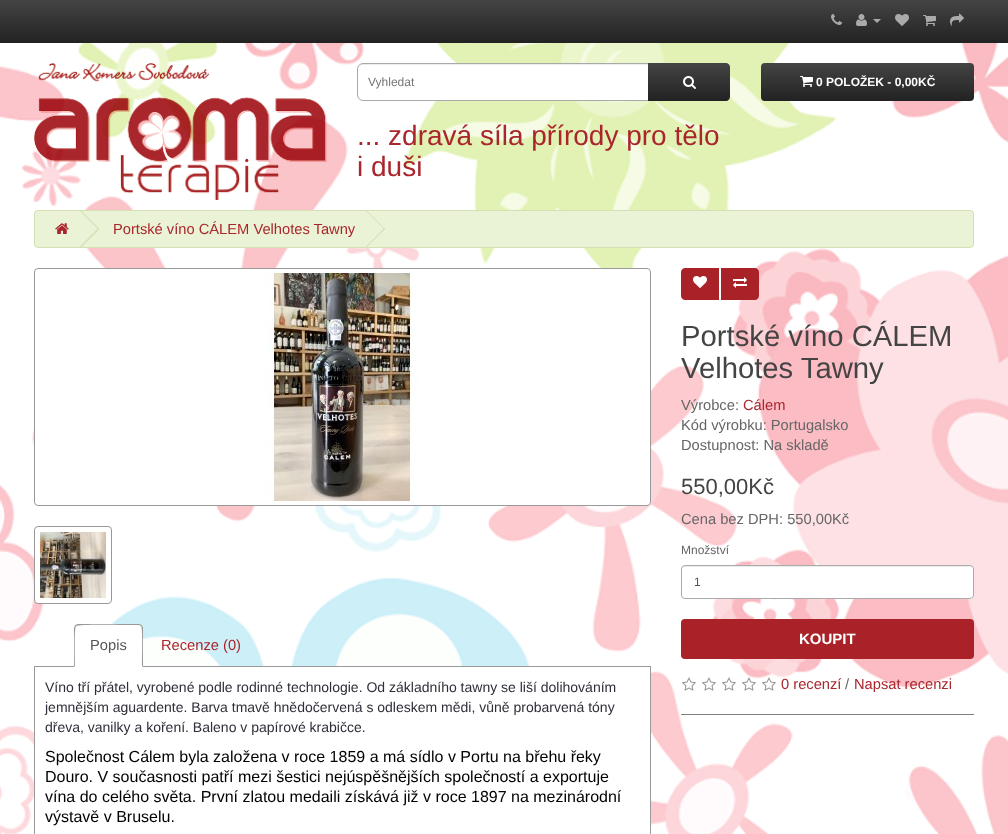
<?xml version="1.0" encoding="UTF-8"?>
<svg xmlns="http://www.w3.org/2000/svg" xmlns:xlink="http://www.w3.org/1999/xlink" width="1008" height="834">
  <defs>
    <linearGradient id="g1" gradientUnits="userSpaceOnUse" x1="504" y1="0" x2="504" y2="43"><stop offset="0" stop-color="#444444" /><stop offset="1" stop-color="#222222" /></linearGradient>
    <linearGradient id="g2" gradientUnits="userSpaceOnUse" x1="689" y1="63" x2="689" y2="101"><stop offset="0" stop-color="#444444" /><stop offset="1" stop-color="#222222" /></linearGradient>
    <linearGradient id="g3" gradientUnits="userSpaceOnUse" x1="868" y1="63" x2="868" y2="101"><stop offset="0" stop-color="#444444" /><stop offset="1" stop-color="#222222" /></linearGradient>
  </defs>
  <rect width="100%" height="100%" fill="#ffffff" />
  <image x="0" y="43" width="1008" height="791" xlink:href="image1.png" />
  <rect width="1008" height="43" fill="url(#g1)" />
  <image x="831" y="14" width="11" height="11" xlink:href="image2.png" />
  <image x="856" y="14" width="11" height="12" xlink:href="image3.png" />
  <path d="M 873 19 h 8 l -4 4 z" fill="#aaaaaa" />
  <image x="895" y="14" width="14" height="12" xlink:href="image4.png" />
  <image x="923" y="15" width="13" height="11" xlink:href="image5.png" />
  <image x="950" y="13" width="14" height="13" xlink:href="image6.png" />
  <image x="34" y="63" width="293" height="137" xlink:href="image7.png" />
  <path d="M 363 63 h 286 v 38 h -286 c -3.5 0 -6 -2.5 -6 -6 v -26 c 0 -3.5 2.5 -6 6 -6 z" fill="#ffffff" />
  <path d="M 363 65 h 285 v -1 h -285 c -3 0 -5 2 -5 5 v 1 c 0 -3 2 -5 5 -5 z" fill="#ececec" />
  <path d="M 363 63.5 h 285.5 v 37 h -285.5 c -3 0 -5.5 -2.5 -5.5 -5.5 v -26 c 0 -3 2.5 -5.5 5.5 -5.5 z" fill="none" stroke="#aaaaaa" />
  <path d="M 648 63 h 78 c 2 0 4 2 4 4 v 30 c 0 2 -2 4 -4 4 h -78 z" fill="url(#g2)" />
  <image x="683" y="76" width="13" height="13" xlink:href="image8.png" />
  <rect x="761" y="63" width="213" height="38" rx="4" fill="url(#g3)" />
  <image x="800" y="76" width="13" height="11" xlink:href="image9.png" />
  <rect x="34.5" y="210.5" width="939" height="37" rx="3.5" fill="#ebf3d7" stroke="#d3dfb5" />
  <image x="55" y="223" width="14" height="11" xlink:href="image10.png" />
  <path d="M 80 211 l 1 -0.5 l 18.5 18.5 l -1 0.5 z" fill="#d3dfb5" />
  <path d="M 80 246.5 l 18.5 -18.5 l 1 1 l -18.5 18.5 z" fill="#d3dfb5" />
  <path d="M 366 211 l 0.5 -0.5 l 18.5 18.5 l -0.5 0.5 z" fill="#d3dfb5" />
  <path d="M 366 246.5 l 18.5 -18.5 l 0.5 1 l -18.5 18.5 z" fill="#d3dfb5" />
  <path d="M 685 268 h 34 v 32 h -34 c -2 0 -4 -2 -4 -4 v -24 c 0 -2 2 -4 4 -4 z" fill="#a92227" />
  <image x="693" y="276" width="14" height="12" xlink:href="image11.png" />
  <path d="M 721 268 h 34 c 2 0 4 2 4 4 v 24 c 0 2 -2 4 -4 4 h -34 z" fill="#a92227" />
  <image x="733" y="277" width="14" height="11" xlink:href="image12.png" />
  <rect x="681" y="565" width="293" height="34" rx="4" fill="#ffffff" />
  <path d="M 685 567 h 285 c 2 0 3 1 3 3 c 0 -2 -1 -4 -3 -4 h -285 c -2 0 -3 2 -3 4 c 0 -2 1 -3 3 -3 z" fill="#ececec" />
  <rect x="681.5" y="565.5" width="292" height="33" rx="3.5" fill="none" stroke="#aaaaaa" />
  <rect x="681" y="619" width="293" height="40" rx="4" fill="#a92227" />
  <image x="682" y="677" width="14" height="14" xlink:href="image13.png" />
  <image x="702" y="677" width="14" height="14" xlink:href="image13.png" />
  <image x="722" y="677" width="14" height="14" xlink:href="image13.png" />
  <image x="742" y="677" width="14" height="14" xlink:href="image14.png" />
  <image x="762" y="677" width="14" height="14" xlink:href="image15.png" />
  <rect x="681" y="714" width="293" height="1" fill="#808080" />
  <rect x="34.5" y="268.5" width="616" height="237" rx="3.5" fill="#ffffff" stroke="#999999" />
  <image x="264" y="273" width="155" height="228" xlink:href="image16.png" />
  <rect x="34.5" y="526.5" width="77" height="77" rx="3.5" fill="#ffffff" stroke="#999999" />
  <image x="40" y="532" width="66" height="66" xlink:href="image17.png" />
  <rect x="34" y="666" width="617" height="1" fill="#999999" />
  <path d="M 78 624 h 61 c 2 0 4 2 4 4 v 39 h -69 v -39 c 0 -2 2 -4 4 -4 z" fill="#ffffff" />
  <path d="M 78 624 l -3 1 l 1 1 c 2 -2 47 -1 53 -1 h 10 l 2 1 l 1 -1 l -3 -1 z" fill="#999999" />
  <path d="M 143 667 v -39 c 0 -1 -1 -2 -1 -3 l -1 1 c 2 2 1 35 1 40 z" fill="#999999" />
  <path d="M 74 667 l 1 -1 c 0 -5 -1 -38 1 -40 l -1 -1 l -1 3 z" fill="#999999" />
  <rect x="35" y="667" width="615" height="167" fill="#ffffff" />
  <rect x="650" y="667" width="1" height="167" fill="#999999" />
  <rect x="34" y="667" width="1" height="167" fill="#999999" />
  <text x="368" y="86" style="font-family: Liberation Sans; font-size: 12px; fill: #757575">Vyhledat</text>
  <text x="357" y="145" style="font-family: Liberation Sans; font-size: 28px; fill: #a9262c">... zdravá síla přírody pro tělo</text>
  <text x="357" y="176" style="font-family: Liberation Sans; font-size: 28px; fill: #a9262c">i duši</text>
  <text x="816" y="86" style="font-family: Liberation Sans; font-size: 12px; font-weight: bold; fill: #ffffff">0 POLOŽEK - 0,00KČ</text>
  <text x="113" y="234" style="font-family: Liberation Sans; font-size: 14.7px; fill: #a9262c">Portské víno CÁLEM Velhotes Tawny</text>
  <text x="681" y="346" style="font-family: Liberation Sans; font-size: 29.25px; fill: #444444">Portské víno CÁLEM</text>
  <text x="681" y="378" style="font-family: Liberation Sans; font-size: 29.25px; fill: #444444">Velhotes Tawny</text>
  <text x="681" y="410" style="font-family: Liberation Sans; font-size: 14.7px; fill: #666666">Výrobce:</text>
  <text x="743" y="410" style="font-family: Liberation Sans; font-size: 14.7px; fill: #a9262c">Cálem</text>
  <text x="681" y="430" style="font-family: Liberation Sans; font-size: 14.7px; fill: #666666">Kód výrobku: Portugalsko</text>
  <text x="681" y="450" style="font-family: Liberation Sans; font-size: 14.7px; fill: #666666">Dostupnost: Na skladě</text>
  <text x="681" y="494" style="font-family: Liberation Sans; font-size: 22px; fill: #444444">550,00Kč</text>
  <text x="681" y="524" style="font-family: Liberation Sans; font-size: 14.7px; fill: #666666">Cena bez DPH: 550,00Kč</text>
  <text x="681" y="554" style="font-family: Liberation Sans; font-size: 12px; fill: #666666">Množství</text>
  <text x="694" y="586" style="font-family: Liberation Sans; font-size: 12px; fill: #555555">1</text>
  <text x="799" y="644" style="font-family: Liberation Sans; font-size: 15px; font-weight: bold; fill: #ffffff">KOUPIT</text>
  <text x="781" y="689" style="font-family: Liberation Sans; font-size: 14.7px; fill: #a9262c">0 recenzí</text>
  <text x="845" y="689" style="font-family: Liberation Sans; font-size: 14.7px; fill: #666666">/</text>
  <text x="854" y="689" style="font-family: Liberation Sans; font-size: 14.7px; fill: #a9262c">Napsat recenzi</text>
  <text x="90" y="650" style="font-family: Liberation Sans; font-size: 14.7px; fill: #555555">Popis</text>
  <text x="161" y="650" style="font-family: Liberation Sans; font-size: 14.7px; fill: #a9262c">Recenze (0)</text>
  <text x="45" y="692" style="font-family: Liberation Sans; font-size: 14px; fill: #2f2e39">Víno tří přátel, vyrobené podle rodinné technologie. Od základního tawny se liší dolihováním</text>
  <text x="45" y="712" style="font-family: Liberation Sans; font-size: 14px; fill: #2f2e39">jemnějším aguardente. Barva tmavě hnědočervená s odleskem mědi, vůně probarvená tóny</text>
  <text x="45" y="732" style="font-family: Liberation Sans; font-size: 14px; fill: #2f2e39">dřeva, vanilky a koření. Baleno v papírové krabičce.</text>
  <text x="45" y="762" style="font-family: Liberation Sans; font-size: 16px; fill: #000000">Společnost Cálem byla založena v roce 1859 a má sídlo v Portu na břehu řeky</text>
  <text x="45" y="782" style="font-family: Liberation Sans; font-size: 16px; fill: #000000">Douro. V současnosti patří mezi šestici nejúspěšnějších společností a exportuje</text>
  <text x="45" y="802" style="font-family: Liberation Sans; font-size: 16px; fill: #000000">vína do celého světa. První zlatou medaili získává již v roce 1897 na mezinárodní</text>
  <text x="45" y="822" style="font-family: Liberation Sans; font-size: 16px; fill: #000000">výstavě v Bruselu.</text>
</svg>
